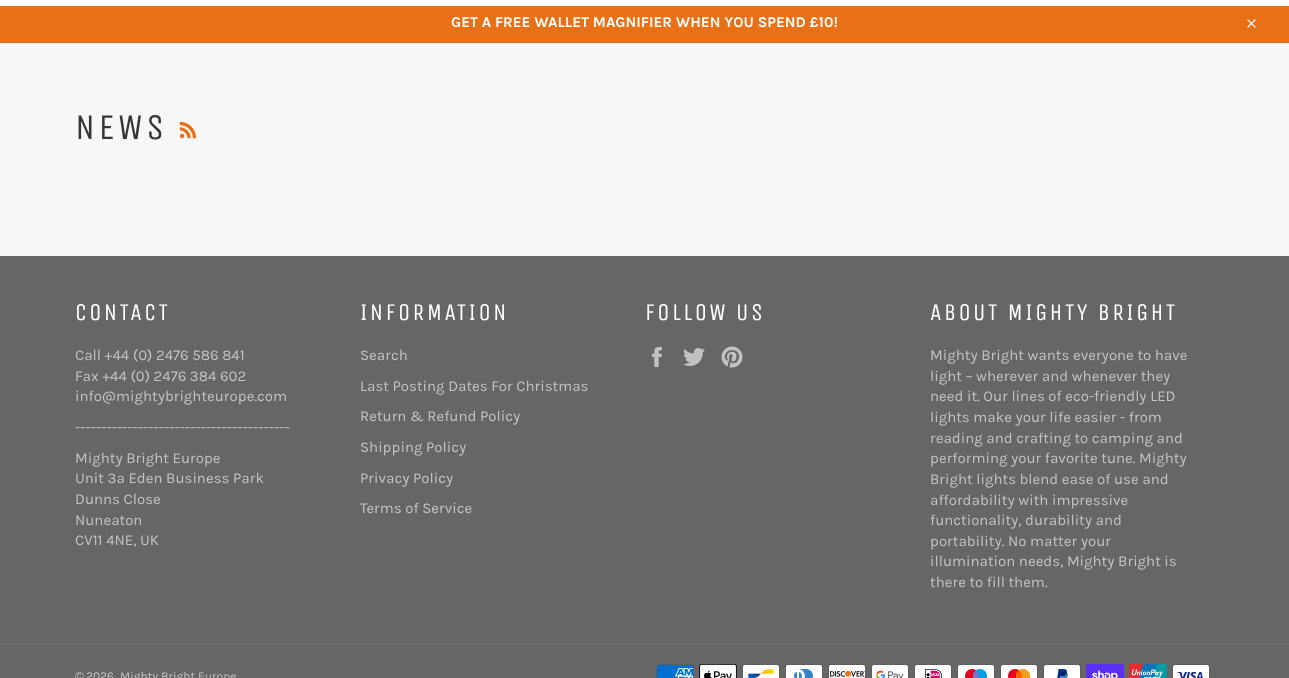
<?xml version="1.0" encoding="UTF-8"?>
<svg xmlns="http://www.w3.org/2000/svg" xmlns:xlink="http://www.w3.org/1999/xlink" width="1289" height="678">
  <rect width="100%" height="100%" fill="#f7f7f7" />
  <rect width="1289" height="6" fill="#ffffff" />
  <rect y="6" width="1289" height="37" fill="#e87016" />
  <image x="1247" y="19" width="9" height="9" xlink:href="image1.png" />
  <image x="179" y="121" width="18" height="18" xlink:href="image2.png" />
  <rect y="256" width="1289" height="422" fill="#666666" />
  <image x="652" y="347" width="10" height="20" xlink:href="image3.png" />
  <image x="683" y="348" width="22" height="18" xlink:href="image4.png" />
  <image x="721" y="346" width="22" height="22" xlink:href="image5.png" />
  <rect y="643" width="1289" height="1" fill="#737373" />
  <image x="656" y="664" width="38" height="14" xlink:href="image6.png" />
  <image x="699" y="664" width="38" height="14" xlink:href="image7.png" />
  <image x="742" y="664" width="38" height="14" xlink:href="image8.png" />
  <image x="785" y="664" width="38" height="14" xlink:href="image9.png" />
  <image x="828" y="664" width="38" height="14" xlink:href="image10.png" />
  <image x="871" y="664" width="38" height="14" xlink:href="image11.png" />
  <image x="914" y="664" width="38" height="14" xlink:href="image12.png" />
  <image x="957" y="664" width="38" height="14" xlink:href="image13.png" />
  <image x="1000" y="664" width="38" height="14" xlink:href="image14.png" />
  <image x="1043" y="664" width="38" height="14" xlink:href="image15.png" />
  <image x="1086" y="664" width="38" height="14" xlink:href="image16.png" />
  <image x="1129" y="664" width="38" height="14" xlink:href="image17.png" />
  <image x="1172" y="664" width="38" height="14" xlink:href="image18.png" />
  <text x="451" y="27" style="font-family: Karla; font-size: 15px; font-weight: bold; fill: #ffffff">GET A FREE WALLET MAGNIFIER WHEN YOU SPEND £10!</text>
  <text x="75" y="139" style="font-family: Unica One; font-size: 36px; letter-spacing: 3.5px; fill: #373636">NEWS</text>
  <text x="75" y="320" style="font-family: Unica One; font-size: 24px; letter-spacing: 2.4px; fill: #ffffff">CONTACT</text>
  <text x="75" y="360" style="font-family: Karla; font-size: 15px; fill: #c2c2c2">Call +44 (0) 2476 586 841</text>
  <text x="75" y="381" style="font-family: Karla; font-size: 15px; fill: #c2c2c2">Fax +44 (0) 2476 384 602</text>
  <text x="75" y="401" style="font-family: Karla; font-size: 15px; fill: #c2c2c2">info@mightybrighteurope.com</text>
  <text x="75" y="432" style="font-family: Karla; font-size: 15px; fill: #c2c2c2">-----------------------------------------</text>
  <text x="75" y="463" style="font-family: Karla; font-size: 15px; fill: #c2c2c2">Mighty Bright Europe</text>
  <text x="75" y="483" style="font-family: Karla; font-size: 15px; fill: #c2c2c2">Unit 3a Eden Business Park</text>
  <text x="75" y="504" style="font-family: Karla; font-size: 15px; fill: #c2c2c2">Dunns Close</text>
  <text x="75" y="525" style="font-family: Karla; font-size: 15px; fill: #c2c2c2">Nuneaton</text>
  <text x="75" y="545" style="font-family: Karla; font-size: 15px; fill: #c2c2c2">CV11 4NE, UK</text>
  <text x="360" y="320" style="font-family: Unica One; font-size: 24px; letter-spacing: 2.4px; fill: #ffffff">INFORMATION</text>
  <text x="360" y="360" style="font-family: Karla; font-size: 15px; fill: #c2c2c2">Search</text>
  <text x="360" y="391" style="font-family: Karla; font-size: 15px; fill: #c2c2c2">Last Posting Dates For Christmas</text>
  <text x="360" y="421" style="font-family: Karla; font-size: 15px; fill: #c2c2c2">Return &amp; Refund Policy</text>
  <text x="360" y="452" style="font-family: Karla; font-size: 15px; fill: #c2c2c2">Shipping Policy</text>
  <text x="360" y="483" style="font-family: Karla; font-size: 15px; fill: #c2c2c2">Privacy Policy</text>
  <text x="360" y="513" style="font-family: Karla; font-size: 15px; fill: #c2c2c2">Terms of Service</text>
  <text x="645" y="320" style="font-family: Unica One; font-size: 24px; letter-spacing: 2.4px; fill: #ffffff">FOLLOW US</text>
  <text x="930" y="320" style="font-family: Unica One; font-size: 24px; letter-spacing: 2.4px; fill: #ffffff">ABOUT MIGHTY BRIGHT</text>
  <text x="930" y="360" style="font-family: Karla; font-size: 15px; fill: #c2c2c2">Mighty Bright wants everyone to have</text>
  <text x="930" y="381" style="font-family: Karla; font-size: 15px; fill: #c2c2c2">light – wherever and whenever they</text>
  <text x="930" y="401" style="font-family: Karla; font-size: 15px; fill: #c2c2c2">need it. Our lines of eco-friendly LED</text>
  <text x="930" y="422" style="font-family: Karla; font-size: 15px; fill: #c2c2c2">lights make your life easier - from</text>
  <text x="930" y="443" style="font-family: Karla; font-size: 15px; fill: #c2c2c2">reading and crafting to camping and</text>
  <text x="930" y="463" style="font-family: Karla; font-size: 15px; fill: #c2c2c2">performing your favorite tune. Mighty</text>
  <text x="930" y="484" style="font-family: Karla; font-size: 15px; fill: #c2c2c2">Bright lights blend ease of use and</text>
  <text x="930" y="505" style="font-family: Karla; font-size: 15px; fill: #c2c2c2">affordability with impressive</text>
  <text x="930" y="525" style="font-family: Karla; font-size: 15px; fill: #c2c2c2">functionality, durability and</text>
  <text x="930" y="546" style="font-family: Karla; font-size: 15px; fill: #c2c2c2">portability. No matter your</text>
  <text x="930" y="566" style="font-family: Karla; font-size: 15px; fill: #c2c2c2">illumination needs, Mighty Bright is</text>
  <text x="930" y="587" style="font-family: Karla; font-size: 15px; fill: #c2c2c2">there to fill them.</text>
  <text x="75" y="680" style="font-family: Liberation Sans; font-size: 12px; fill: #c2c2c2">©</text>
  <text x="86" y="680" style="font-family: Karla; font-size: 12px; fill: #c2c2c2">2026</text>
  <text x="120" y="680" style="font-family: Karla; font-size: 12px; fill: #c2c2c2">Mighty Bright Europe</text>
</svg>
